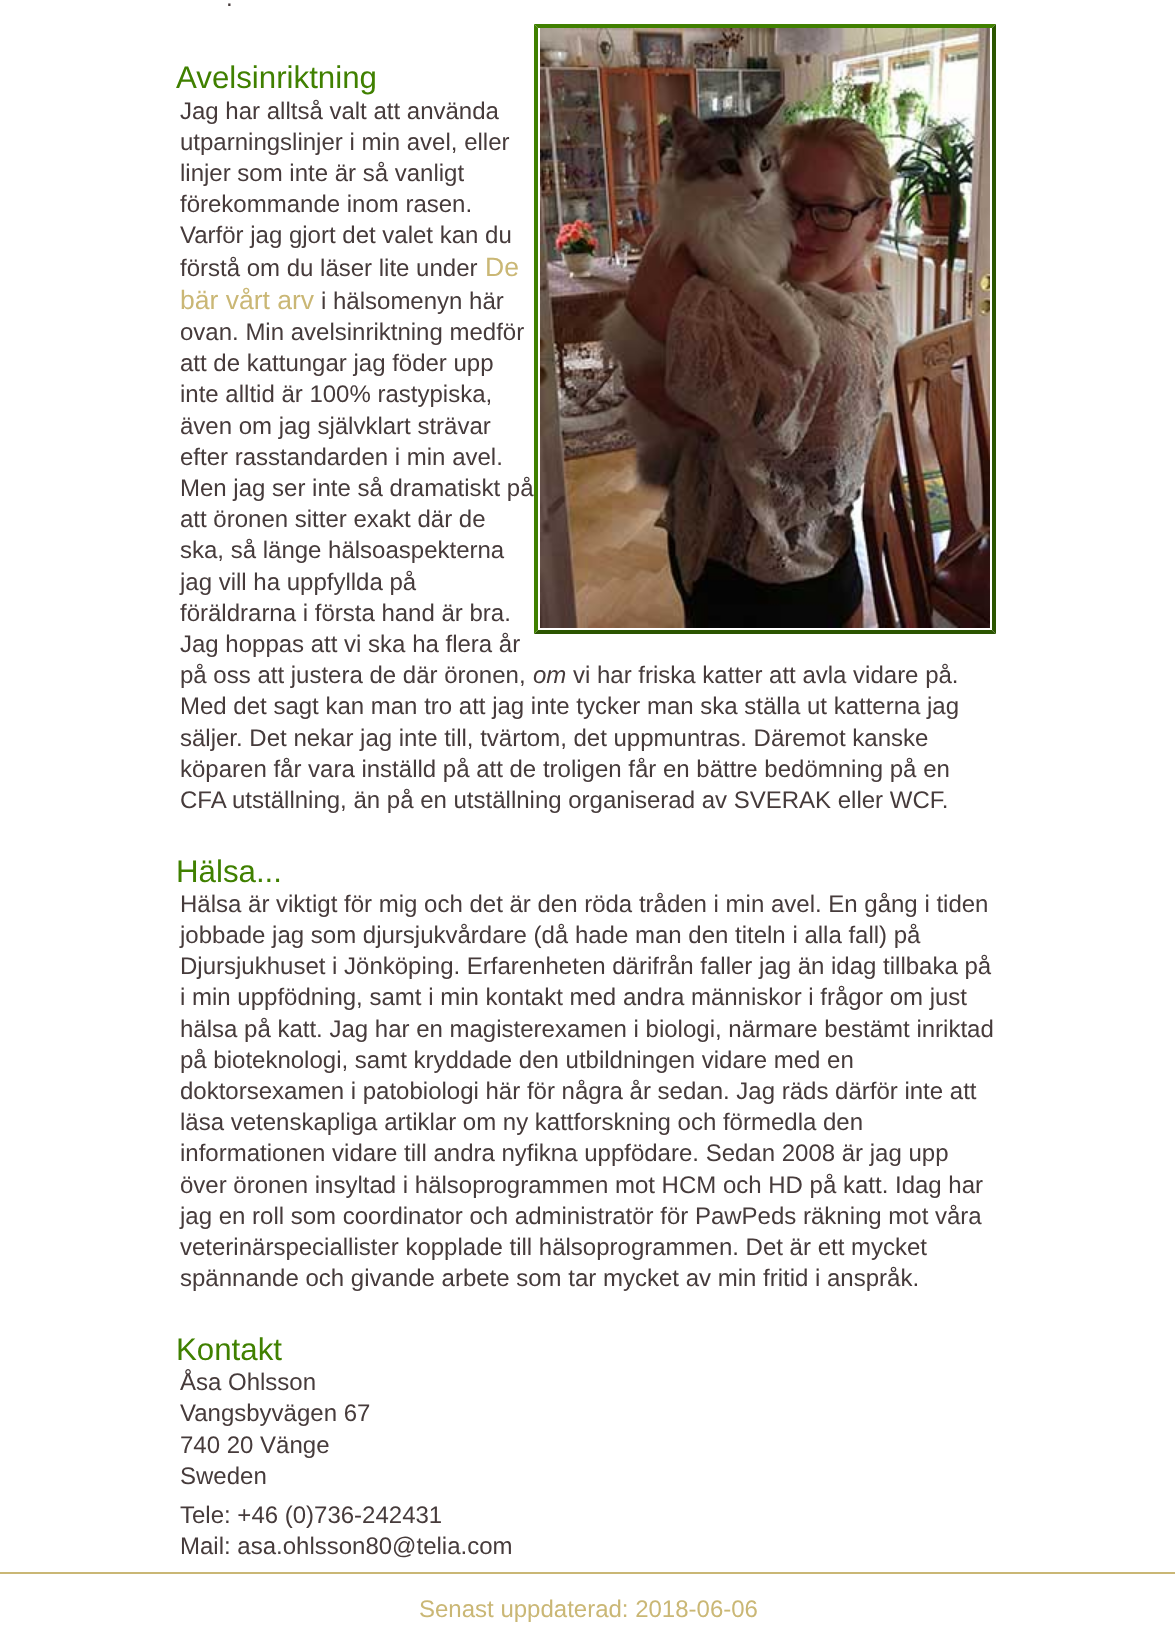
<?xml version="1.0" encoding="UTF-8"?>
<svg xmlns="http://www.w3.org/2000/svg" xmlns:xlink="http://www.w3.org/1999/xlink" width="1175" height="1646">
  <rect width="100%" height="100%" fill="#ffffff" />
  <path d="M 534 24 h 462 l -4 4 h -454 z" fill="#408000" />
  <path d="M 996 24 v 610 l -4 -4 v -602 z" fill="#2b5500" />
  <path d="M 996 634 h -462 l 4 -4 h 454 z" fill="#2b5500" />
  <path d="M 534 634 v -610 l 4 4 v 602 z" fill="#408000" />
  <image x="540" y="28" width="450" height="600" xlink:href="image1.png" />
  <rect y="1572" width="1175" height="2" fill="#cab775" />
  <text x="226" y="6" style="font-family: Liberation Sans; font-size: 24px; fill: #463b3b">.</text>
  <text x="176" y="88" style="font-family: Liberation Sans; font-size: 31.25px; fill: #408000">Avelsinriktning</text>
  <text x="180" y="119" style="font-family: Liberation Sans; font-size: 24px; fill: #463b3b">Jag har alltså valt att använda</text>
  <text x="180" y="150" style="font-family: Liberation Sans; font-size: 24px; fill: #463b3b">utparningslinjer i min avel, eller</text>
  <text x="180" y="181" style="font-family: Liberation Sans; font-size: 24px; fill: #463b3b">linjer som inte är så vanligt</text>
  <text x="180" y="212" style="font-family: Liberation Sans; font-size: 24px; fill: #463b3b">förekommande inom rasen.</text>
  <text x="180" y="243" style="font-family: Liberation Sans; font-size: 24px; fill: #463b3b">Varför jag gjort det valet kan du</text>
  <text x="180" y="276" style="font-family: Liberation Sans; font-size: 24px; fill: #463b3b">förstå om du läser lite under</text>
  <text x="485" y="276" style="font-family: Liberation Sans; font-size: 26.5px; fill: #cab775">De</text>
  <text x="180" y="309" style="font-family: Liberation Sans; font-size: 26.5px; fill: #cab775">bär vårt arv</text>
  <text x="321" y="309" style="font-family: Liberation Sans; font-size: 24px; fill: #463b3b">i hälsomenyn här</text>
  <text x="180" y="340" style="font-family: Liberation Sans; font-size: 24px; fill: #463b3b">ovan. Min avelsinriktning medför</text>
  <text x="180" y="371" style="font-family: Liberation Sans; font-size: 24px; fill: #463b3b">att de kattungar jag föder upp</text>
  <text x="180" y="402" style="font-family: Liberation Sans; font-size: 24px; fill: #463b3b">inte alltid är 100% rastypiska,</text>
  <text x="180" y="434" style="font-family: Liberation Sans; font-size: 24px; fill: #463b3b">även om jag självklart strävar</text>
  <text x="180" y="465" style="font-family: Liberation Sans; font-size: 24px; fill: #463b3b">efter rasstandarden i min avel.</text>
  <text x="180" y="496" style="font-family: Liberation Sans; font-size: 24px; fill: #463b3b">Men jag ser inte så dramatiskt på</text>
  <text x="180" y="527" style="font-family: Liberation Sans; font-size: 24px; fill: #463b3b">att öronen sitter exakt där de</text>
  <text x="180" y="558" style="font-family: Liberation Sans; font-size: 24px; fill: #463b3b">ska, så länge hälsoaspekterna</text>
  <text x="180" y="590" style="font-family: Liberation Sans; font-size: 24px; fill: #463b3b">jag vill ha uppfyllda på</text>
  <text x="180" y="621" style="font-family: Liberation Sans; font-size: 24px; fill: #463b3b">föräldrarna i första hand är bra.</text>
  <text x="180" y="652" style="font-family: Liberation Sans; font-size: 24px; fill: #463b3b">Jag hoppas att vi ska ha flera år</text>
  <text x="180" y="683" style="font-family: Liberation Sans; font-size: 24px; fill: #463b3b">på oss att justera de där öronen,</text>
  <text x="533" y="683" style="font-family: Liberation Sans; font-size: 24px; font-style: italic; fill: #463b3b">om</text>
  <text x="573" y="683" style="font-family: Liberation Sans; font-size: 24px; fill: #463b3b">vi har friska katter att avla vidare på.</text>
  <text x="180" y="714" style="font-family: Liberation Sans; font-size: 24px; fill: #463b3b">Med det sagt kan man tro att jag inte tycker man ska ställa ut katterna jag</text>
  <text x="180" y="746" style="font-family: Liberation Sans; font-size: 24px; fill: #463b3b">säljer. Det nekar jag inte till, tvärtom, det uppmuntras. Däremot kanske</text>
  <text x="180" y="777" style="font-family: Liberation Sans; font-size: 24px; fill: #463b3b">köparen får vara inställd på att de troligen får en bättre bedömning på en</text>
  <text x="180" y="808" style="font-family: Liberation Sans; font-size: 24px; fill: #463b3b">CFA utställning, än på en utställning organiserad av SVERAK eller WCF.</text>
  <text x="176" y="882" style="font-family: Liberation Sans; font-size: 31.25px; fill: #408000">Hälsa...</text>
  <text x="180" y="912" style="font-family: Liberation Sans; font-size: 24px; fill: #463b3b">Hälsa är viktigt för mig och det är den röda tråden i min avel. En gång i tiden</text>
  <text x="180" y="943" style="font-family: Liberation Sans; font-size: 24px; fill: #463b3b">jobbade jag som djursjukvårdare (då hade man den titeln i alla fall) på</text>
  <text x="180" y="974" style="font-family: Liberation Sans; font-size: 24px; fill: #463b3b">Djursjukhuset i Jönköping. Erfarenheten därifrån faller jag än idag tillbaka på</text>
  <text x="180" y="1005" style="font-family: Liberation Sans; font-size: 24px; fill: #463b3b">i min uppfödning, samt i min kontakt med andra människor i frågor om just</text>
  <text x="180" y="1037" style="font-family: Liberation Sans; font-size: 24px; fill: #463b3b">hälsa på katt. Jag har en magisterexamen i biologi, närmare bestämt inriktad</text>
  <text x="180" y="1068" style="font-family: Liberation Sans; font-size: 24px; fill: #463b3b">på bioteknologi, samt kryddade den utbildningen vidare med en</text>
  <text x="180" y="1099" style="font-family: Liberation Sans; font-size: 24px; fill: #463b3b">doktorsexamen i patobiologi här för några år sedan. Jag räds därför inte att</text>
  <text x="180" y="1130" style="font-family: Liberation Sans; font-size: 24px; fill: #463b3b">läsa vetenskapliga artiklar om ny kattforskning och förmedla den</text>
  <text x="180" y="1161" style="font-family: Liberation Sans; font-size: 24px; fill: #463b3b">informationen vidare till andra nyfikna uppfödare. Sedan 2008 är jag upp</text>
  <text x="180" y="1193" style="font-family: Liberation Sans; font-size: 24px; fill: #463b3b">över öronen insyltad i hälsoprogrammen mot HCM och HD på katt. Idag har</text>
  <text x="180" y="1224" style="font-family: Liberation Sans; font-size: 24px; fill: #463b3b">jag en roll som coordinator och administratör för PawPeds räkning mot våra</text>
  <text x="180" y="1255" style="font-family: Liberation Sans; font-size: 24px; fill: #463b3b">veterinärspeciallister kopplade till hälsoprogrammen. Det är ett mycket</text>
  <text x="180" y="1286" style="font-family: Liberation Sans; font-size: 24px; fill: #463b3b">spännande och givande arbete som tar mycket av min fritid i anspråk.</text>
  <text x="176" y="1360" style="font-family: Liberation Sans; font-size: 31.25px; fill: #408000">Kontakt</text>
  <text x="180" y="1390" style="font-family: Liberation Sans; font-size: 24px; fill: #463b3b">Åsa Ohlsson</text>
  <text x="180" y="1421" style="font-family: Liberation Sans; font-size: 24px; fill: #463b3b">Vangsbyvägen 67</text>
  <text x="180" y="1453" style="font-family: Liberation Sans; font-size: 24px; fill: #463b3b">740 20 Vänge</text>
  <text x="180" y="1484" style="font-family: Liberation Sans; font-size: 24px; fill: #463b3b">Sweden</text>
  <text x="180" y="1523" style="font-family: Liberation Sans; font-size: 24px; fill: #463b3b">Tele: +46 (0)736-242431</text>
  <text x="180" y="1554" style="font-family: Liberation Sans; font-size: 24px; fill: #463b3b">Mail: asa.ohlsson80@telia.com</text>
  <text x="419" y="1617" style="font-family: Liberation Sans; font-size: 24px; fill: #cab775">Senast uppdaterad: 2018-06-06</text>
</svg>
